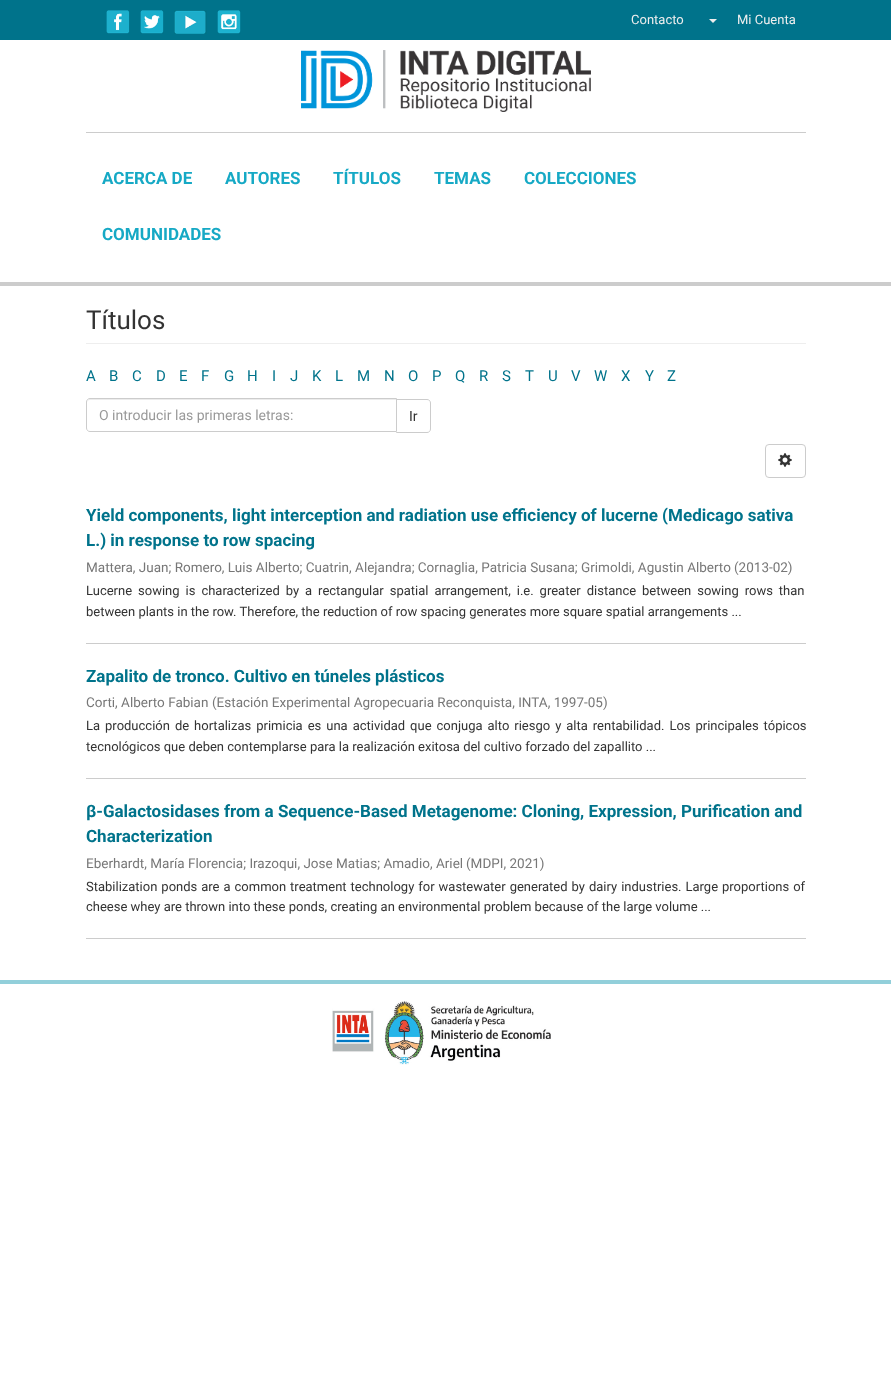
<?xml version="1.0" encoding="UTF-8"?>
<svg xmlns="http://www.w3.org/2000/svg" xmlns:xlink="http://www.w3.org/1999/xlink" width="891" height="1384">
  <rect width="100%" height="100%" fill="#ffffff" />
  <rect width="891" height="40" fill="#00738b" />
  <image x="106" y="10" width="24" height="24" xlink:href="image1.png" />
  <image x="140" y="10" width="24" height="24" xlink:href="image2.png" />
  <image x="174" y="10" width="33" height="24" xlink:href="image3.png" />
  <image x="217" y="10" width="24" height="24" xlink:href="image4.png" />
  <path d="M 709 19 h 8 l -4 4 z" fill="#eeeeee" />
  <rect y="282" width="891" height="4" fill="#cccccc" />
  <rect x="86" y="132" width="720" height="1" fill="#cccccc" />
  <image x="301" y="50" width="290" height="62" xlink:href="image5.png" />
  <rect x="86" y="343" width="720" height="1" fill="#eeeeee" />
  <path d="M 396.5 399.5 h 30.5 c 2 0 3.5 1.5 3.5 3.5 v 26 c 0 2 -1.5 3.5 -3.5 3.5 h -30.5 z" fill="none" stroke="#cccccc" />
  <path d="M 90 398 h 307 v 34 h -307 c -2 0 -4 -2 -4 -4 v -26 c 0 -2 2 -4 4 -4 z" fill="#ffffff" />
  <path d="M 90 400 h 306 v -1 h -306 c -2 0 -3 2 -3 4 c 0 -2 1 -3 3 -3 z" fill="#ececec" />
  <path d="M 90 398.5 h 306.5 v 33 h -306.5 c -2 0 -3.5 -1.5 -3.5 -3.5 v -26 c 0 -2 1.5 -3.5 3.5 -3.5 z" fill="none" stroke="#cccccc" />
  <rect x="765.5" y="444.5" width="40" height="33" rx="3.5" fill="none" stroke="#cccccc" />
  <image x="778" y="453" width="14" height="14" xlink:href="image6.png" />
  <rect x="86" y="643" width="720" height="1" fill="#cccccc" />
  <rect x="86" y="778" width="720" height="1" fill="#cccccc" />
  <rect x="86" y="938" width="720" height="1" fill="#cccccc" />
  <rect y="980" width="891" height="4" fill="#92cfda" />
  <image x="332" y="1001" width="219" height="64" xlink:href="image7.png" />
  <text x="631" y="24" style="font-family: Roboto; font-size: 13px; fill: #eeeeee">Contacto</text>
  <text x="737" y="24" style="font-family: Roboto; font-size: 13px; fill: #eeeeee">Mi Cuenta</text>
  <text x="102" y="184" style="font-family: Roboto; font-size: 17px; font-weight: bold; fill: #16a9c5">ACERCA DE</text>
  <text x="225" y="184" style="font-family: Roboto; font-size: 17px; font-weight: bold; fill: #16a9c5">AUTORES</text>
  <text x="333" y="184" style="font-family: Roboto; font-size: 17px; font-weight: bold; fill: #16a9c5">TÍTULOS</text>
  <text x="434" y="184" style="font-family: Roboto; font-size: 17px; font-weight: bold; fill: #16a9c5">TEMAS</text>
  <text x="524" y="184" style="font-family: Roboto; font-size: 17px; font-weight: bold; fill: #16a9c5">COLECCIONES</text>
  <text x="102" y="240" style="font-family: Roboto; font-size: 17px; font-weight: bold; fill: #16a9c5">COMUNIDADES</text>
  <text x="86" y="329" style="font-family: Roboto; font-size: 26px; fill: #333333">Títulos</text>
  <text x="86" y="381" style="font-family: Roboto; font-size: 15px; fill: #00738b">A</text>
  <text x="109" y="381" style="font-family: Roboto; font-size: 15px; fill: #00738b">B</text>
  <text x="132" y="381" style="font-family: Roboto; font-size: 15px; fill: #00738b">C</text>
  <text x="156" y="381" style="font-family: Roboto; font-size: 15px; fill: #00738b">D</text>
  <text x="179" y="381" style="font-family: Roboto; font-size: 15px; fill: #00738b">E</text>
  <text x="201" y="381" style="font-family: Roboto; font-size: 15px; fill: #00738b">F</text>
  <text x="224" y="381" style="font-family: Roboto; font-size: 15px; fill: #00738b">G</text>
  <text x="247" y="381" style="font-family: Roboto; font-size: 15px; fill: #00738b">H</text>
  <text x="272" y="381" style="font-family: Roboto; font-size: 15px; fill: #00738b">I</text>
  <text x="290" y="381" style="font-family: Roboto; font-size: 15px; fill: #00738b">J</text>
  <text x="312" y="381" style="font-family: Roboto; font-size: 15px; fill: #00738b">K</text>
  <text x="335" y="381" style="font-family: Roboto; font-size: 15px; fill: #00738b">L</text>
  <text x="357" y="381" style="font-family: Roboto; font-size: 15px; fill: #00738b">M</text>
  <text x="384" y="381" style="font-family: Roboto; font-size: 15px; fill: #00738b">N</text>
  <text x="408" y="381" style="font-family: Roboto; font-size: 15px; fill: #00738b">O</text>
  <text x="432" y="381" style="font-family: Roboto; font-size: 15px; fill: #00738b">P</text>
  <text x="455" y="381" style="font-family: Roboto; font-size: 15px; fill: #00738b">Q</text>
  <text x="479" y="381" style="font-family: Roboto; font-size: 15px; fill: #00738b">R</text>
  <text x="502" y="381" style="font-family: Roboto; font-size: 15px; fill: #00738b">S</text>
  <text x="525" y="381" style="font-family: Roboto; font-size: 15px; fill: #00738b">T</text>
  <text x="548" y="381" style="font-family: Roboto; font-size: 15px; fill: #00738b">U</text>
  <text x="571" y="381" style="font-family: Roboto; font-size: 15px; fill: #00738b">V</text>
  <text x="594" y="381" style="font-family: Roboto; font-size: 15px; fill: #00738b">W</text>
  <text x="621" y="381" style="font-family: Roboto; font-size: 15px; fill: #00738b">X</text>
  <text x="645" y="381" style="font-family: Roboto; font-size: 15px; fill: #00738b">Y</text>
  <text x="667" y="381" style="font-family: Roboto; font-size: 15px; fill: #00738b">Z</text>
  <text x="99" y="420" style="font-family: Roboto; font-size: 14px; fill: #999999">O introducir las primeras letras:</text>
  <text x="409" y="421" style="font-family: Roboto; font-size: 14px; fill: #333333">Ir</text>
  <text x="86" y="521" style="font-family: Roboto; font-size: 17px; font-weight: bold; fill: #00738b">Yield components, light interception and radiation use efficiency of lucerne (Medicago sativa</text>
  <text x="86" y="546" style="font-family: Roboto; font-size: 17px; font-weight: bold; fill: #00738b">L.) in response to row spacing</text>
  <text x="86" y="572" style="font-family: Roboto; font-size: 13.5px; fill: #777777">Mattera, Juan; Romero, Luis Alberto; Cuatrin, Alejandra; Cornaglia, Patricia Susana; Grimoldi, Agustin Alberto</text>
  <text x="734" y="572" style="font-family: Roboto; font-size: 13.5px; fill: #777777">(2013-02)</text>
  <text x="86" y="595" word-spacing="2.75" style="font-family: Roboto; font-size: 13px; fill: #333333">Lucerne sowing is characterized by a rectangular spatial arrangement, i.e. greater distance between sowing rows than</text>
  <text x="86" y="616" style="font-family: Roboto; font-size: 13px; fill: #333333">between plants in the row. Therefore, the reduction of row spacing generates more square spatial arrangements ...</text>
  <text x="86" y="682" style="font-family: Roboto; font-size: 17px; font-weight: bold; fill: #00738b">Zapalito de tronco. Cultivo en túneles plásticos</text>
  <text x="86" y="707" style="font-family: Roboto; font-size: 13.5px; fill: #777777">Corti, Alberto Fabian</text>
  <text x="212" y="707" style="font-family: Roboto; font-size: 13.5px; fill: #777777">(Estación Experimental Agropecuaria Reconquista, INTA, 1997-05)</text>
  <text x="86" y="730" word-spacing="1.75" style="font-family: Roboto; font-size: 13px; fill: #333333">La producción de hortalizas primicia es una actividad que conjuga alto riesgo y alta rentabilidad. Los principales tópicos</text>
  <text x="86" y="751" style="font-family: Roboto; font-size: 13px; fill: #333333">tecnológicos que deben contemplarse para la realización exitosa del cultivo forzado del zapallito ...</text>
  <text x="86" y="817" style="font-family: Roboto; font-size: 17px; font-weight: bold; fill: #00738b">β-Galactosidases from a Sequence-Based Metagenome: Cloning, Expression, Purification and</text>
  <text x="86" y="842" style="font-family: Roboto; font-size: 17px; font-weight: bold; fill: #00738b">Characterization</text>
  <text x="86" y="868" style="font-family: Roboto; font-size: 13.5px; fill: #777777">Eberhardt, María Florencia; Irazoqui, Jose Matias; Amadio, Ariel</text>
  <text x="466" y="868" style="font-family: Roboto; font-size: 13.5px; fill: #777777">(MDPI, 2021)</text>
  <text x="86" y="891" word-spacing="0.75" style="font-family: Roboto; font-size: 13px; fill: #333333">Stabilization ponds are a common treatment technology for wastewater generated by dairy industries. Large proportions of</text>
  <text x="86" y="911" style="font-family: Roboto; font-size: 13px; fill: #333333">cheese whey are thrown into these ponds, creating an environmental problem because of the large volume ...</text>
</svg>
